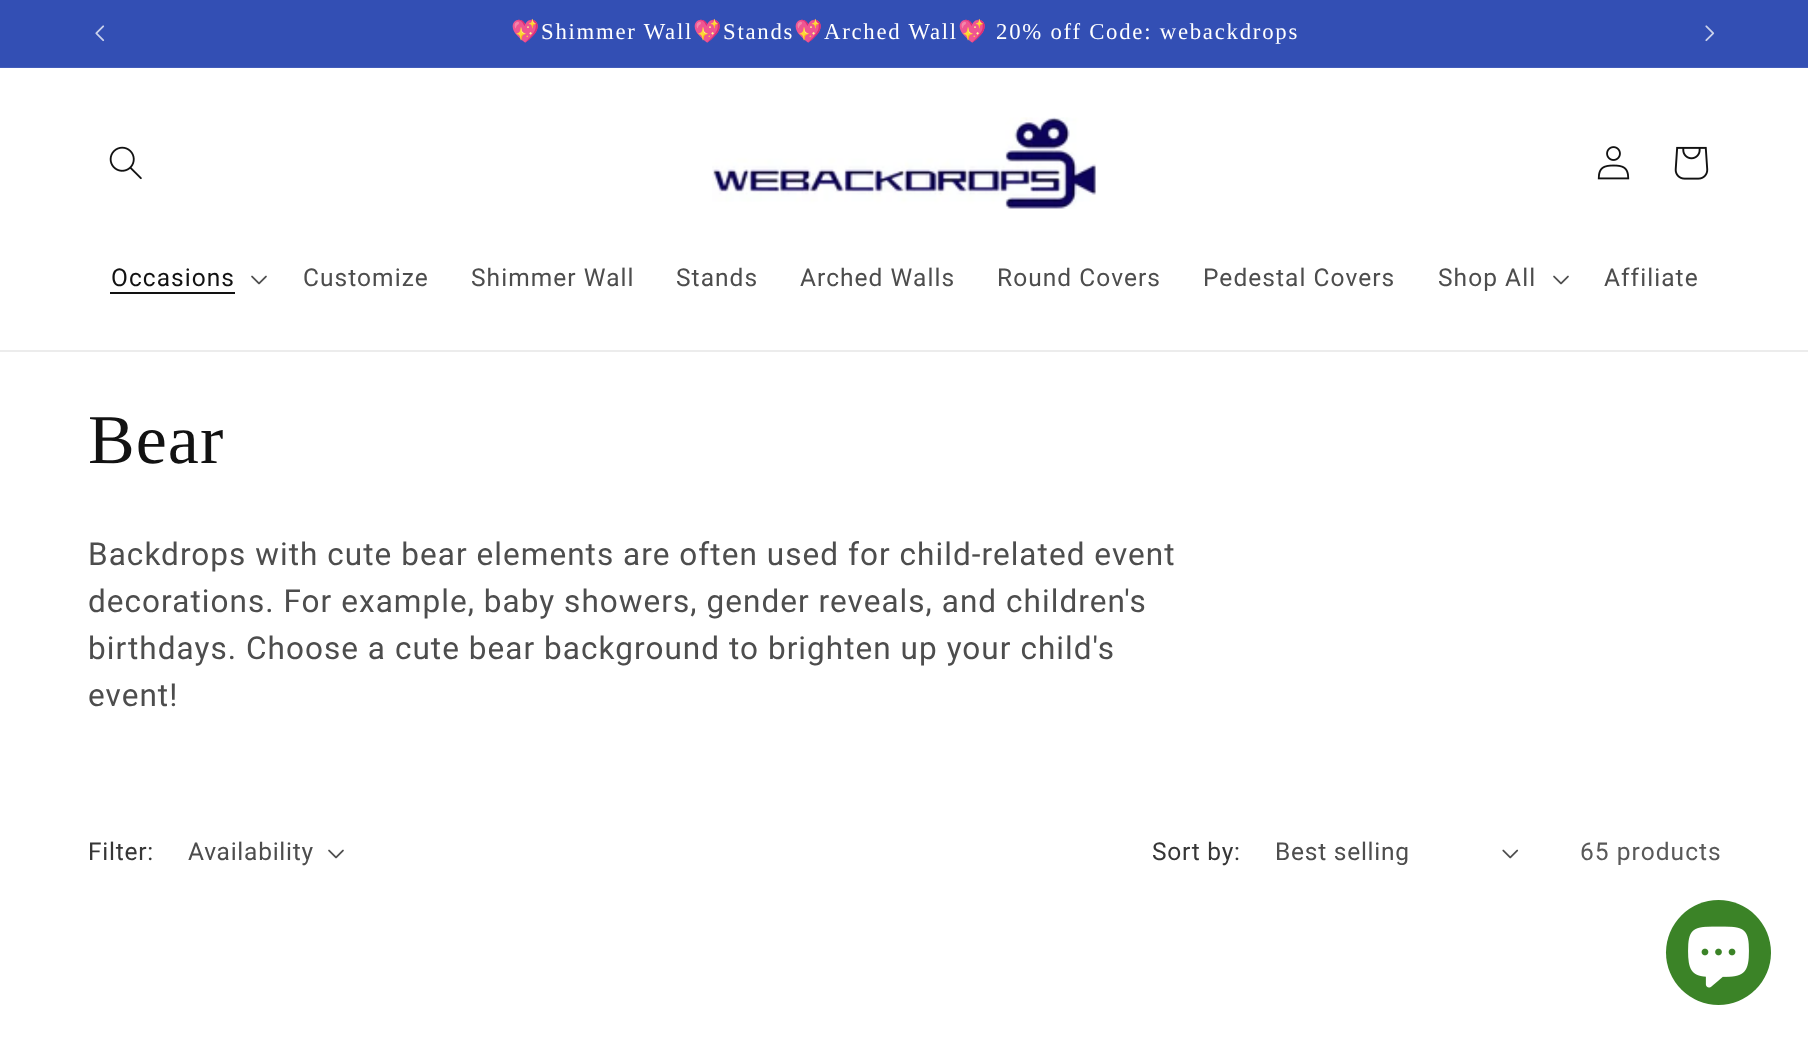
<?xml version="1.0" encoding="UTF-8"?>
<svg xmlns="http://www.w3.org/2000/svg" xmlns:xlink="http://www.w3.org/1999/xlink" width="1808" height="1041">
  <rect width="100%" height="100%" fill="#ffffff" />
  <rect width="1808" height="67" fill="#334fb4" />
  <rect y="67" width="1808" height="1" fill="#435dba" />
  <image x="95" y="25" width="10" height="17" xlink:href="image1.png" />
  <image x="1705" y="25" width="10" height="17" xlink:href="image2.png" />
  <rect y="350" width="1808" height="2" fill="#ececec" />
  <image x="109" y="146" width="33" height="34" xlink:href="image3.png" />
  <image x="712" y="117" width="385" height="92" xlink:href="image4.png" />
  <image x="1597" y="146" width="33" height="34" xlink:href="image5.png" />
  <image x="1674" y="146" width="35" height="34" xlink:href="image6.png" />
  <rect x="110" y="292" width="125" height="2" fill="#121212" />
  <image x="251" y="275" width="16" height="10" xlink:href="image7.png" />
  <image x="1553" y="275" width="16" height="10" xlink:href="image7.png" />
  <image x="328" y="849" width="16" height="10" xlink:href="image7.png" />
  <image x="1502" y="849" width="17" height="10" xlink:href="image8.png" />
  <circle cx="1718.5" cy="952.5" r="52.5" fill="#3b8327" />
  <image x="1688" y="926" width="61" height="62" xlink:href="image9.png" />
  <text x="511" y="39" style="font-family: Noto Color Emoji; font-size: 22.75px; letter-spacing: 1.75px; fill: #ffffff">💖</text>
  <text x="541" y="39" style="font-family: Liberation Serif; font-size: 22.75px; letter-spacing: 1.75px; fill: #ffffff">Shimmer Wall</text>
  <text x="693" y="39" style="font-family: Noto Color Emoji; font-size: 22.75px; letter-spacing: 1.75px; fill: #ffffff">💖</text>
  <text x="723" y="39" style="font-family: Liberation Serif; font-size: 22.75px; letter-spacing: 1.75px; fill: #ffffff">Stands</text>
  <text x="794" y="39" style="font-family: Noto Color Emoji; font-size: 22.75px; letter-spacing: 1.75px; fill: #ffffff">💖</text>
  <text x="824" y="39" style="font-family: Liberation Serif; font-size: 22.75px; letter-spacing: 1.75px; fill: #ffffff">Arched Wall</text>
  <text x="958" y="39" style="font-family: Noto Color Emoji; font-size: 22.75px; letter-spacing: 1.75px; fill: #ffffff">💖</text>
  <text x="996" y="39" style="font-family: Liberation Serif; font-size: 22.75px; letter-spacing: 1.75px; fill: #ffffff">20% off Code: webackdrops</text>
  <text x="111" y="286" style="font-family: Roboto; font-size: 24.5px; letter-spacing: 1.05px; fill: #121212">Occasions</text>
  <text x="303" y="286" style="font-family: Roboto; font-size: 24.5px; letter-spacing: 1.05px; fill: #4d4d4d">Customize</text>
  <text x="471" y="286" style="font-family: Roboto; font-size: 24.5px; letter-spacing: 1.05px; fill: #4d4d4d">Shimmer Wall</text>
  <text x="676" y="286" style="font-family: Roboto; font-size: 24.5px; letter-spacing: 1.05px; fill: #4d4d4d">Stands</text>
  <text x="800" y="286" style="font-family: Roboto; font-size: 24.5px; letter-spacing: 1.05px; fill: #4d4d4d">Arched Walls</text>
  <text x="997" y="286" style="font-family: Roboto; font-size: 24.5px; letter-spacing: 1.05px; fill: #4d4d4d">Round Covers</text>
  <text x="1203" y="286" style="font-family: Roboto; font-size: 24.5px; letter-spacing: 1.05px; fill: #4d4d4d">Pedestal Covers</text>
  <text x="1438" y="286" style="font-family: Roboto; font-size: 24.5px; letter-spacing: 1.05px; fill: #4d4d4d">Shop All</text>
  <text x="1604" y="286" style="font-family: Roboto; font-size: 24.5px; letter-spacing: 1.05px; fill: #4d4d4d">Affiliate</text>
  <text x="88" y="463" style="font-family: Liberation Serif; font-size: 70px; letter-spacing: 1.05px; fill: #121212">Bear</text>
  <text x="88" y="565" style="font-family: Roboto; font-size: 31.5px; letter-spacing: 1.05px; fill: #4d4d4d">Backdrops with cute bear elements are often used for child-related event</text>
  <text x="88" y="612" style="font-family: Roboto; font-size: 31.5px; letter-spacing: 1.05px; fill: #4d4d4d">decorations. For example, baby showers, gender reveals, and children's</text>
  <text x="88" y="659" style="font-family: Roboto; font-size: 31.5px; letter-spacing: 1.05px; fill: #4d4d4d">birthdays. Choose a cute bear background to brighten up your child's</text>
  <text x="88" y="706" style="font-family: Roboto; font-size: 31.5px; letter-spacing: 1.05px; fill: #4d4d4d">event!</text>
  <text x="88" y="860" style="font-family: Roboto; font-size: 24.5px; letter-spacing: 0.75px; fill: #363636">Filter:</text>
  <text x="188" y="860" style="font-family: Roboto; font-size: 24.5px; letter-spacing: 0.75px; fill: #4d4d4d">Availability</text>
  <text x="1152" y="860" style="font-family: Roboto; font-size: 24.5px; letter-spacing: 0.75px; fill: #363636">Sort by:</text>
  <text x="1275" y="860" style="font-family: Roboto; font-size: 24.5px; letter-spacing: 0.75px; fill: #4d4d4d">Best selling</text>
  <text x="1580" y="860" style="font-family: Roboto; font-size: 24.5px; letter-spacing: 1.05px; fill: #595959">65 products</text>
</svg>
